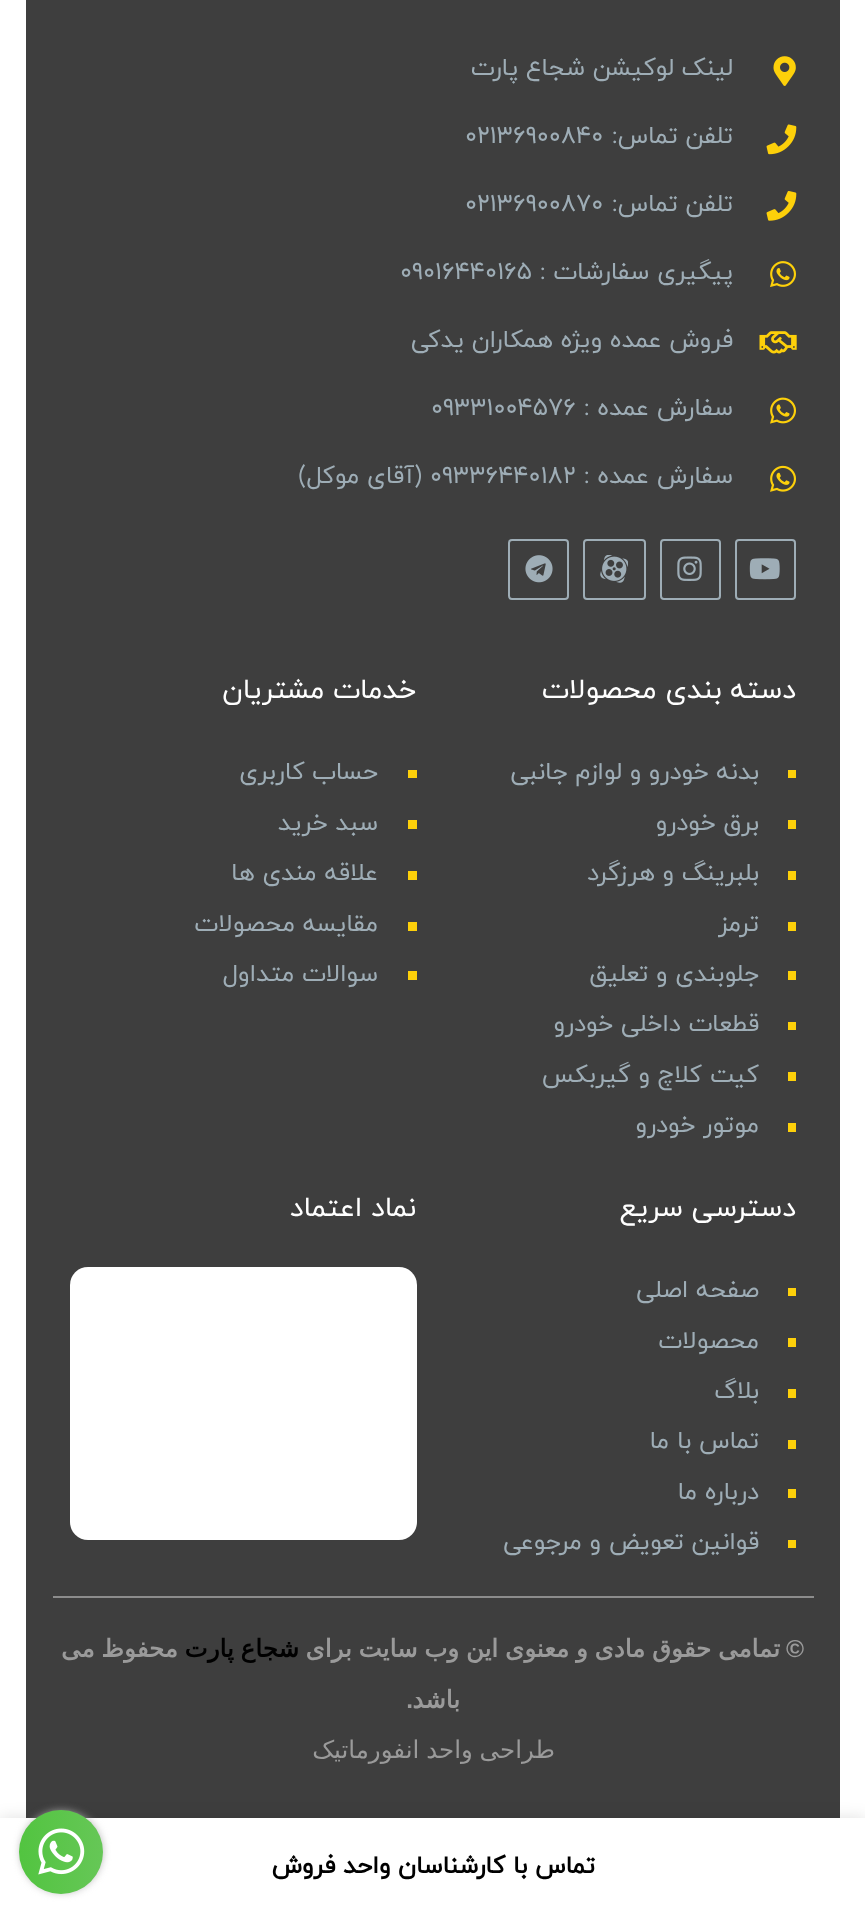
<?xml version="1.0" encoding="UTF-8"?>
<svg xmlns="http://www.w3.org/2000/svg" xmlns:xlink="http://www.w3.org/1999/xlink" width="865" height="1914">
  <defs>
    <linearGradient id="g1" gradientUnits="userSpaceOnUse" x1="103" y1="1852" x2="19" y2="1852"><stop offset="0" stop-color="#66c757" /><stop offset="1" stop-color="#52c440" /></linearGradient>
  </defs>
  <rect width="100%" height="100%" fill="#ffffff" />
  <rect x="26" width="814" height="1818" fill="#3e3e3e" />
  <image x="773" y="56" width="23" height="30" xlink:href="image1.png" />
  <image x="766" y="124" width="31" height="31" xlink:href="image2.png" />
  <image x="766" y="191" width="31" height="30" xlink:href="image3.png" />
  <image x="770" y="261" width="26" height="26" xlink:href="image4.png" />
  <image x="759" y="331" width="38" height="23" xlink:href="image5.png" />
  <image x="770" y="397" width="26" height="27" xlink:href="image6.png" />
  <image x="770" y="465" width="26" height="27" xlink:href="image7.png" />
  <rect x="736" y="540" width="59" height="59" rx="3" fill="none" stroke="#9eadb6" stroke-width="2" />
  <image x="749" y="558" width="31" height="22" xlink:href="image8.png" />
  <rect x="661" y="540" width="59" height="59" rx="3" fill="none" stroke="#9eadb6" stroke-width="2" />
  <image x="677" y="556" width="25" height="25" xlink:href="image9.png" />
  <rect x="584" y="540" width="61" height="59" rx="3" fill="none" stroke="#9eadb6" stroke-width="2" />
  <image x="600" y="555" width="28" height="28" xlink:href="image10.png" />
  <rect x="509" y="540" width="59" height="59" rx="3" fill="none" stroke="#9eadb6" stroke-width="2" />
  <image x="525" y="555" width="28" height="28" xlink:href="image11.png" />
  <rect x="788" y="770" width="8" height="8" fill="#fdd00a" />
  <rect x="788" y="820" width="8" height="9" fill="#fdd00a" />
  <rect x="788" y="871" width="8" height="9" fill="#fdd00a" />
  <rect x="788" y="922" width="8" height="9" fill="#fdd00a" />
  <rect x="788" y="971" width="8" height="9" fill="#fdd00a" />
  <rect x="788" y="1022" width="8" height="8" fill="#fdd00a" />
  <rect x="788" y="1072" width="8" height="9" fill="#fdd00a" />
  <rect x="788" y="1123" width="8" height="9" fill="#fdd00a" />
  <rect x="408" y="770" width="9" height="8" fill="#fdd00a" />
  <rect x="408" y="820" width="9" height="9" fill="#fdd00a" />
  <rect x="408" y="871" width="9" height="9" fill="#fdd00a" />
  <rect x="408" y="922" width="9" height="9" fill="#fdd00a" />
  <rect x="408" y="971" width="9" height="9" fill="#fdd00a" />
  <rect x="788" y="1288" width="8" height="8" fill="#fdd00a" />
  <rect x="788" y="1338" width="8" height="9" fill="#fdd00a" />
  <rect x="788" y="1389" width="8" height="9" fill="#fdd00a" />
  <rect x="788" y="1440" width="8" height="9" fill="#fdd00a" />
  <rect x="788" y="1489" width="8" height="9" fill="#fdd00a" />
  <rect x="788" y="1540" width="8" height="8" fill="#fdd00a" />
  <rect x="70" y="1267" width="347" height="273" rx="18" fill="#ffffff" />
  <rect x="53" y="1596" width="761" height="2" fill="#8c8c8c" />
  <rect y="1818" width="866" height="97" fill="#000000" fill-opacity="0.12" filter="blur(8px)" />
  <rect y="1818" width="865" height="96" fill="#ffffff" />
  <rect x="21" y="1811" width="81" height="81" rx="40.5" fill="#aaaaaa" filter="blur(4.5px)" />
  <circle cx="61" cy="1852" r="42" fill="url(#g1)" />
  <image x="38" y="1828" width="47" height="47" xlink:href="image12.png" />
  <text x="733" y="75" style="font-family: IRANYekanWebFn; font-size: 24.5px; direction: rtl; fill: #9eadb6">لینک لوکیشن شجاع پارت</text>
  <text x="733" y="143" style="font-family: IRANYekanWebFn; font-size: 24.5px; direction: rtl; fill: #9eadb6">تلفن تماس:</text>
  <text x="465" y="143" style="font-family: IRANYekanWebFn; font-size: 24.5px; fill: #9eadb6">۰۲۱36900840</text>
  <text x="733" y="211" style="font-family: IRANYekanWebFn; font-size: 24.5px; direction: rtl; fill: #9eadb6">تلفن تماس:</text>
  <text x="465" y="211" style="font-family: IRANYekanWebFn; font-size: 24.5px; fill: #9eadb6">۰۲۱36900870</text>
  <text x="733" y="279" style="font-family: IRANYekanWebFn; font-size: 24.5px; direction: rtl; fill: #9eadb6">پیگیری سفارشات :</text>
  <text x="400" y="279" style="font-family: IRANYekanWebFn; font-size: 24.5px; fill: #9eadb6">09016440165</text>
  <text x="733" y="347" style="font-family: IRANYekanWebFn; font-size: 24.5px; direction: rtl; fill: #9eadb6">فروش عمده ویژه همکاران یدکی</text>
  <text x="733" y="415" style="font-family: IRANYekanWebFn; font-size: 24.5px; direction: rtl; fill: #9eadb6">سفارش عمده :</text>
  <text x="431" y="415" style="font-family: IRANYekanWebFn; font-size: 24.5px; fill: #9eadb6">09331004576</text>
  <text x="733" y="483" style="font-family: IRANYekanWebFn; font-size: 24.5px; direction: rtl; fill: #9eadb6">سفارش عمده :</text>
  <text x="430" y="483" style="font-family: IRANYekanWebFn; font-size: 24.5px; fill: #9eadb6">09336440182</text>
  <text x="422" y="483" style="font-family: IRANYekanWebFn; font-size: 24.5px; direction: rtl; fill: #9eadb6">(آقای موکل)</text>
  <text x="796" y="698" style="font-family: IRANYekanWebFn; font-size: 28px; direction: rtl; fill: #ffffff">دسته بندی محصولات</text>
  <text x="759" y="779" style="font-family: IRANYekanWebFn; font-size: 24.5px; direction: rtl; fill: #9eadb6">بدنه خودرو و لوازم جانبی</text>
  <text x="759" y="830" style="font-family: IRANYekanWebFn; font-size: 24.5px; direction: rtl; fill: #9eadb6">برق خودرو</text>
  <text x="759" y="880" style="font-family: IRANYekanWebFn; font-size: 24.5px; direction: rtl; fill: #9eadb6">بلبرینگ و هرزگرد</text>
  <text x="759" y="931" style="font-family: IRANYekanWebFn; font-size: 24.5px; direction: rtl; fill: #9eadb6">ترمز</text>
  <text x="759" y="981" style="font-family: IRANYekanWebFn; font-size: 24.5px; direction: rtl; fill: #9eadb6">جلوبندی و تعلیق</text>
  <text x="759" y="1031" style="font-family: IRANYekanWebFn; font-size: 24.5px; direction: rtl; fill: #9eadb6">قطعات داخلی خودرو</text>
  <text x="759" y="1082" style="font-family: IRANYekanWebFn; font-size: 24.5px; direction: rtl; fill: #9eadb6">کیت کلاچ و گیربکس</text>
  <text x="759" y="1132" style="font-family: IRANYekanWebFn; font-size: 24.5px; direction: rtl; fill: #9eadb6">موتور خودرو</text>
  <text x="416" y="698" style="font-family: IRANYekanWebFn; font-size: 28px; direction: rtl; fill: #ffffff">خدمات مشتریان</text>
  <text x="378" y="779" style="font-family: IRANYekanWebFn; font-size: 24.5px; direction: rtl; fill: #9eadb6">حساب کاربری</text>
  <text x="378" y="830" style="font-family: IRANYekanWebFn; font-size: 24.5px; direction: rtl; fill: #9eadb6">سبد خرید</text>
  <text x="378" y="880" style="font-family: IRANYekanWebFn; font-size: 24.5px; direction: rtl; fill: #9eadb6">علاقه مندی ها</text>
  <text x="378" y="931" style="font-family: IRANYekanWebFn; font-size: 24.5px; direction: rtl; fill: #9eadb6">مقایسه محصولات</text>
  <text x="378" y="981" style="font-family: IRANYekanWebFn; font-size: 24.5px; direction: rtl; fill: #9eadb6">سوالات متداول</text>
  <text x="796" y="1216" style="font-family: IRANYekanWebFn; font-size: 28px; direction: rtl; fill: #ffffff">دسترسی سریع</text>
  <text x="759" y="1297" style="font-family: IRANYekanWebFn; font-size: 24.5px; direction: rtl; fill: #9eadb6">صفحه اصلی</text>
  <text x="759" y="1348" style="font-family: IRANYekanWebFn; font-size: 24.5px; direction: rtl; fill: #9eadb6">محصولات</text>
  <text x="759" y="1398" style="font-family: IRANYekanWebFn; font-size: 24.5px; direction: rtl; fill: #9eadb6">بلاگ</text>
  <text x="759" y="1448" style="font-family: IRANYekanWebFn; font-size: 24.5px; direction: rtl; fill: #9eadb6">تماس با ما</text>
  <text x="759" y="1499" style="font-family: IRANYekanWebFn; font-size: 24.5px; direction: rtl; fill: #9eadb6">درباره ما</text>
  <text x="759" y="1549" style="font-family: IRANYekanWebFn; font-size: 24.5px; direction: rtl; fill: #9eadb6">قوانین تعویض و مرجوعی</text>
  <text x="416" y="1216" style="font-family: IRANYekanWebFn; font-size: 28px; direction: rtl; fill: #ffffff">نماد اعتماد</text>
  <text x="780" y="1657" word-spacing="-1" style="font-family: DejaVu Sans; font-size: 24.5px; font-weight: bold; direction: rtl; fill: #9a9a9a">تمامی حقوق مادی و معنوی این وب سایت برای</text>
  <text x="804" y="1657" style="font-family: Liberation Sans; font-size: 24.5px; font-weight: bold; direction: rtl; fill: #9a9a9a">©</text>
  <text x="299" y="1657" word-spacing="-1" style="font-family: DejaVu Sans; font-size: 24.5px; font-weight: bold; direction: rtl; fill: #000000">شجاع پارت</text>
  <text x="178" y="1657" word-spacing="-1" style="font-family: DejaVu Sans; font-size: 24.5px; font-weight: bold; direction: rtl; fill: #9a9a9a">محفوظ می</text>
  <text x="460" y="1708" style="font-family: DejaVu Sans; font-size: 24.5px; font-weight: bold; direction: rtl; fill: #9a9a9a">باشد</text>
  <text x="413" y="1708" style="font-family: Liberation Sans; font-size: 24.5px; font-weight: bold; direction: rtl; fill: #9a9a9a">.</text>
  <text x="555" y="1758" word-spacing="-1" style="font-family: DejaVu Sans; font-size: 24.5px; direction: rtl; fill: #9a9a9a">طراحی واحد انفورماتیک</text>
  <text x="595" y="1873" style="font-family: IRANYekanWebFn; font-size: 24.5px; font-weight: bold; direction: rtl; fill: #000000">تماس با کارشناسان واحد فروش</text>
</svg>
